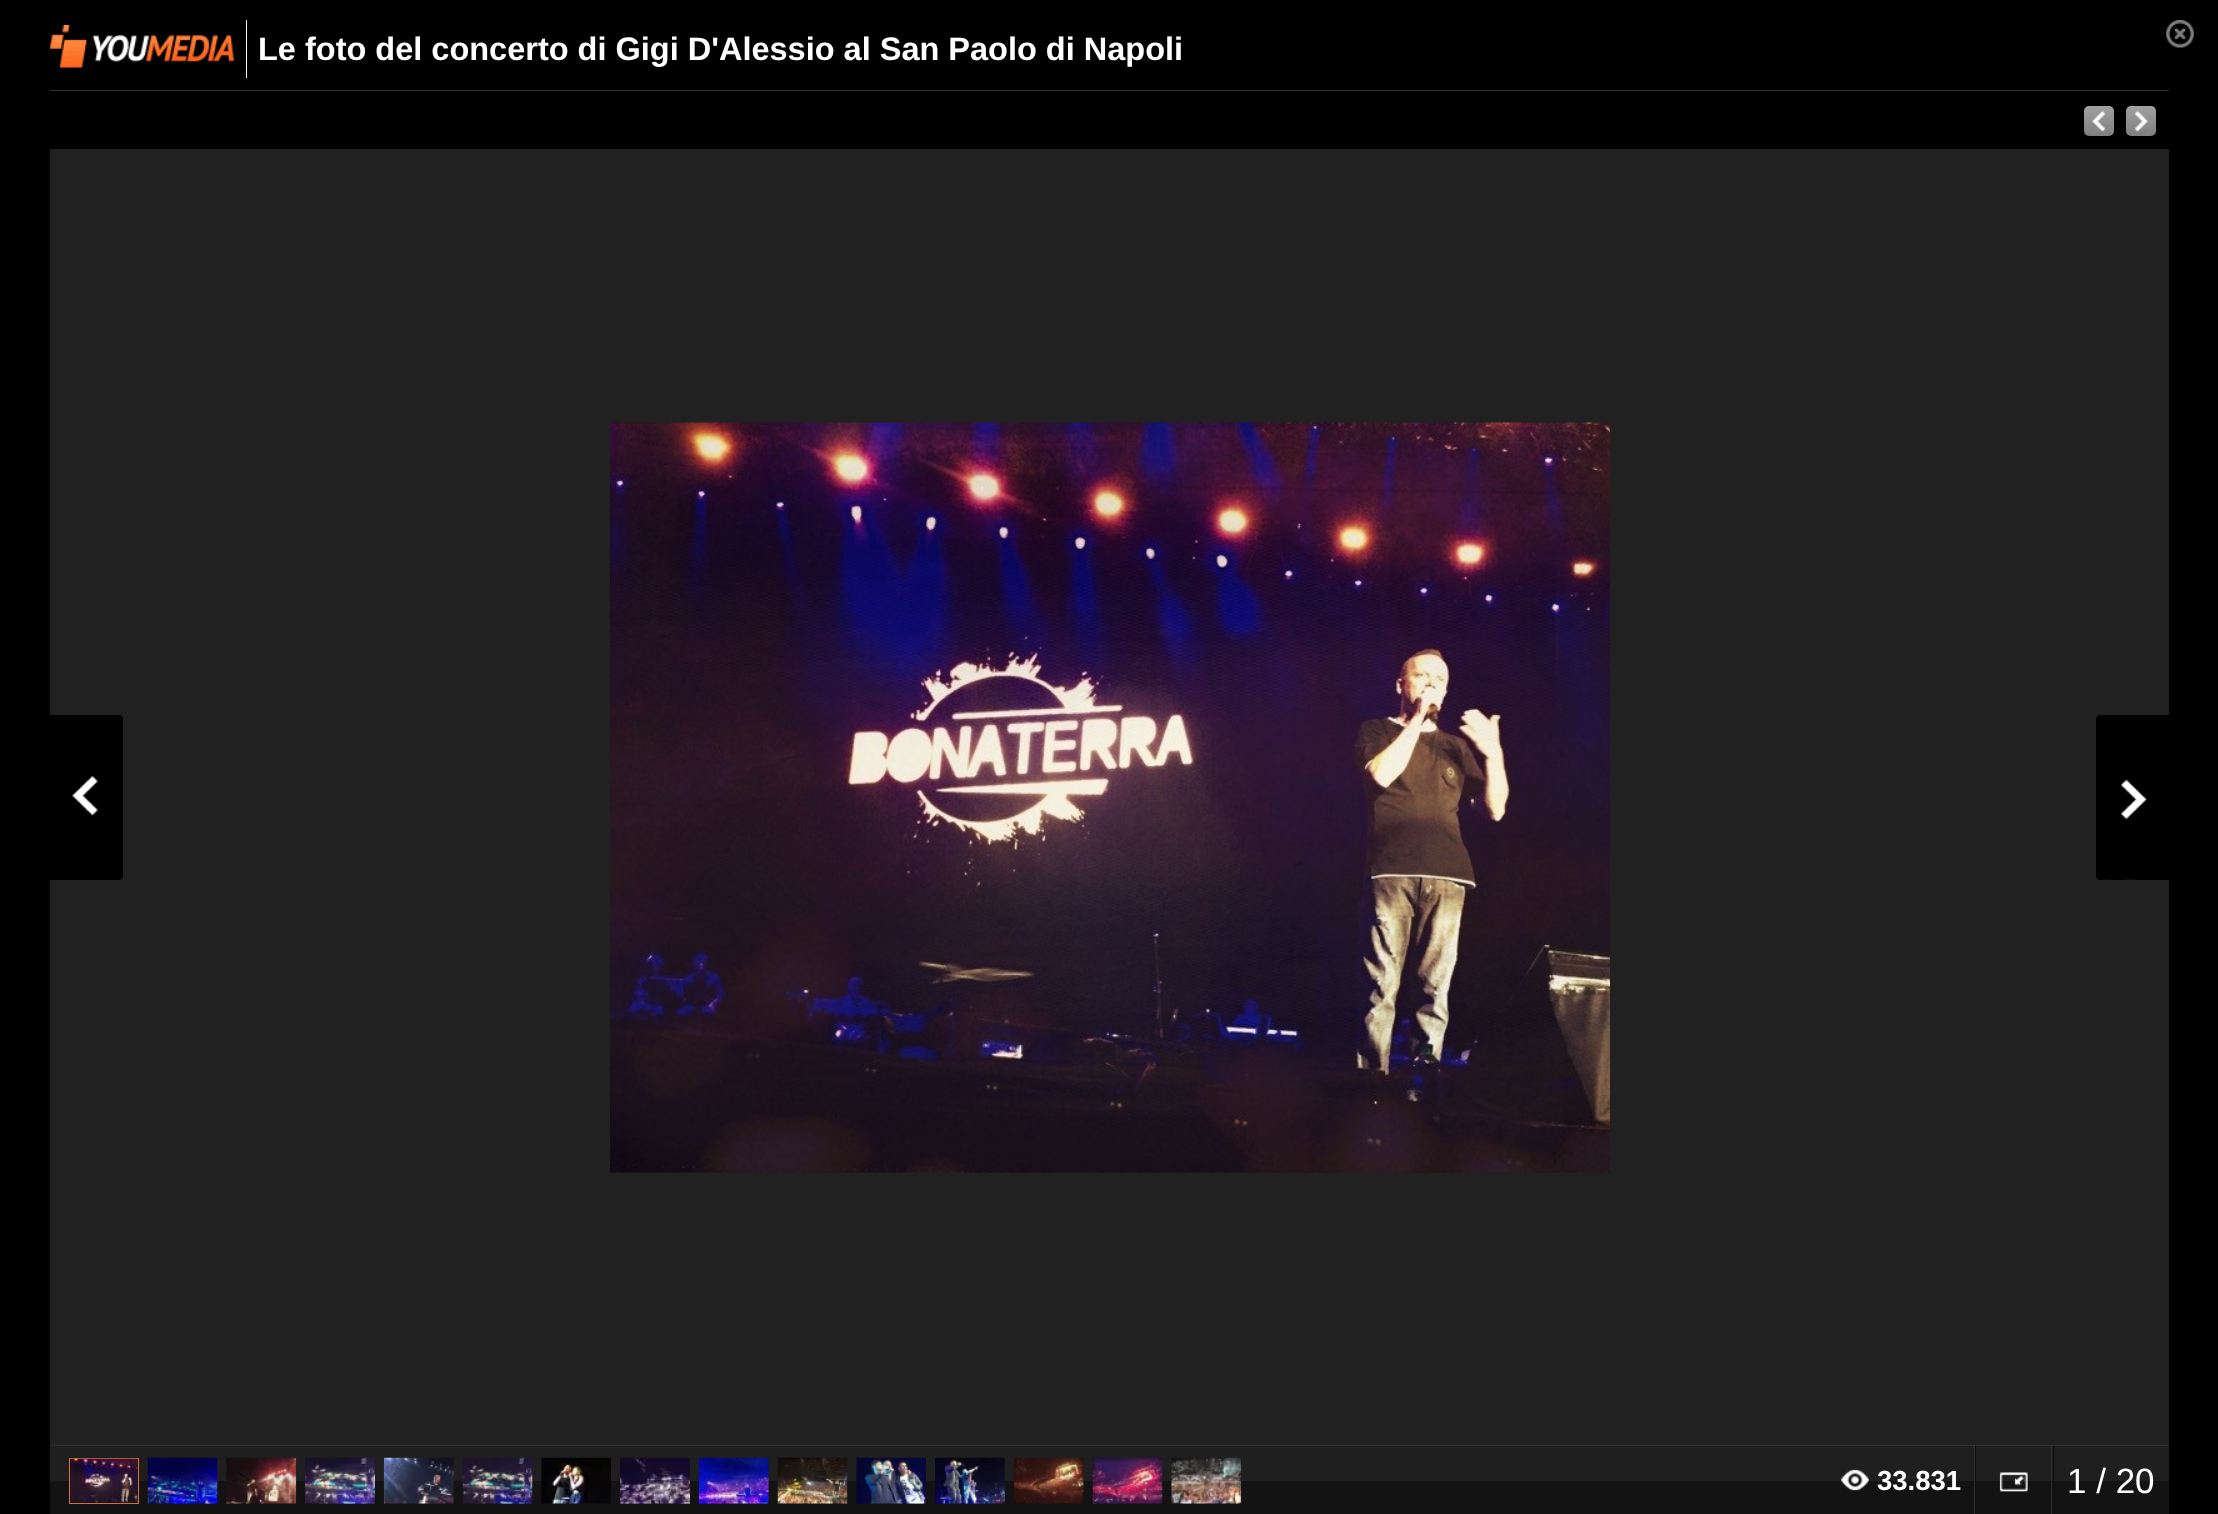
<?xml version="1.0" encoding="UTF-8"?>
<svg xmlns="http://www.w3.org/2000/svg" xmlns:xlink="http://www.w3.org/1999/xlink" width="2218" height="1514">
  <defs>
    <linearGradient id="g1" gradientUnits="userSpaceOnUse" x1="2099" y1="106" x2="2099" y2="136"><stop offset="0" stop-color="#a1a1a1" /><stop offset="1" stop-color="#7e7e7e" /></linearGradient>
    <linearGradient id="g2" gradientUnits="userSpaceOnUse" x1="2141" y1="106" x2="2141" y2="136"><stop offset="0" stop-color="#a1a1a1" /><stop offset="1" stop-color="#7e7e7e" /></linearGradient>
  </defs>
  <rect width="100%" height="100%" fill="#000000" />
  <rect x="50" y="90" width="2119" height="1" fill="#333333" />
  <image x="50" y="25" width="184" height="43" xlink:href="image1.png" />
  <rect x="246" y="20" width="1" height="58" fill="#f7f7f5" />
  <image x="2166" y="20" width="28" height="28" xlink:href="image2.png" />
  <rect x="2084" y="106" width="30" height="30" rx="5" fill="url(#g1)" />
  <image x="2092" y="111" width="14" height="21" xlink:href="image3.png" />
  <rect x="2126" y="106" width="30" height="30" rx="5" fill="url(#g2)" />
  <image x="2134" y="111" width="14" height="21" xlink:href="image4.png" />
  <rect x="50" y="149" width="2119" height="1296" fill="#212121" />
  <path d="M 50 715 h 69 c 2 0 4 2 4 4 v 157 c 0 2 -2 4 -4 4 h -69 z" fill="#000000" />
  <image x="72" y="776" width="26" height="40" xlink:href="image5.png" />
  <image x="610" y="422" width="1000" height="751" xlink:href="image6.png" />
  <path d="M 2100 715 h 69 v 165 h -69 c -2 0 -4 -2 -4 -4 v -157 c 0 -2 2 -4 4 -4 z" fill="#000000" />
  <image x="2102" y="779" width="45" height="101" xlink:href="image7.png" />
  <rect x="50" y="1481" width="2119" height="33" fill="#131313" />
  <rect x="50" y="1446" width="2119" height="35" fill="#1f1f1f" />
  <rect x="50" y="1445" width="2119" height="1" fill="#313131" />
  <rect x="69.5" y="1458.5" width="69" height="45" fill="none" stroke="#da6d31" />
  <image x="70" y="1458" width="68" height="45" xlink:href="image8.png" />
  <image x="147" y="1457" width="71" height="47" xlink:href="image9.png" />
  <image x="226" y="1457" width="71" height="47" xlink:href="image10.png" />
  <image x="305" y="1457" width="70" height="47" xlink:href="image11.png" />
  <image x="383" y="1457" width="71" height="47" xlink:href="image12.png" />
  <image x="462" y="1457" width="71" height="47" xlink:href="image13.png" />
  <image x="541" y="1457" width="70" height="47" xlink:href="image14.png" />
  <image x="620" y="1457" width="70" height="47" xlink:href="image15.png" />
  <image x="698" y="1457" width="71" height="47" xlink:href="image16.png" />
  <image x="777" y="1457" width="71" height="47" xlink:href="image17.png" />
  <image x="856" y="1457" width="70" height="47" xlink:href="image18.png" />
  <image x="935" y="1457" width="70" height="47" xlink:href="image19.png" />
  <image x="1013" y="1457" width="71" height="47" xlink:href="image20.png" />
  <image x="1092" y="1457" width="71" height="47" xlink:href="image21.png" />
  <image x="1171" y="1457" width="71" height="47" xlink:href="image22.png" />
  <rect x="1974" y="1446" width="1" height="68" fill="#313131" />
  <image x="1841" y="1469" width="28" height="22" xlink:href="image23.png" />
  <rect x="2051" y="1446" width="1" height="68" fill="#313131" />
  <rect x="1975" y="1446" width="1" height="68" fill="#0f0f0f" />
  <image x="1999" y="1472" width="29" height="20" xlink:href="image24.png" />
  <rect x="2053" y="1446" width="1" height="68" fill="#0f0f0f" />
  <text x="258" y="60" style="font-family: Liberation Sans; font-size: 32.5px; font-weight: bold; fill: #ffffff">Le foto del concerto di Gigi D'Alessio al San Paolo di Napoli</text>
  <text x="1877" y="1490" style="font-family: Liberation Sans; font-size: 27.5px; font-weight: bold; fill: #ffffff">33.831</text>
  <text x="2067" y="1493" style="font-family: Liberation Sans; font-size: 35px; fill: #ffffff">1 / 20</text>
</svg>
